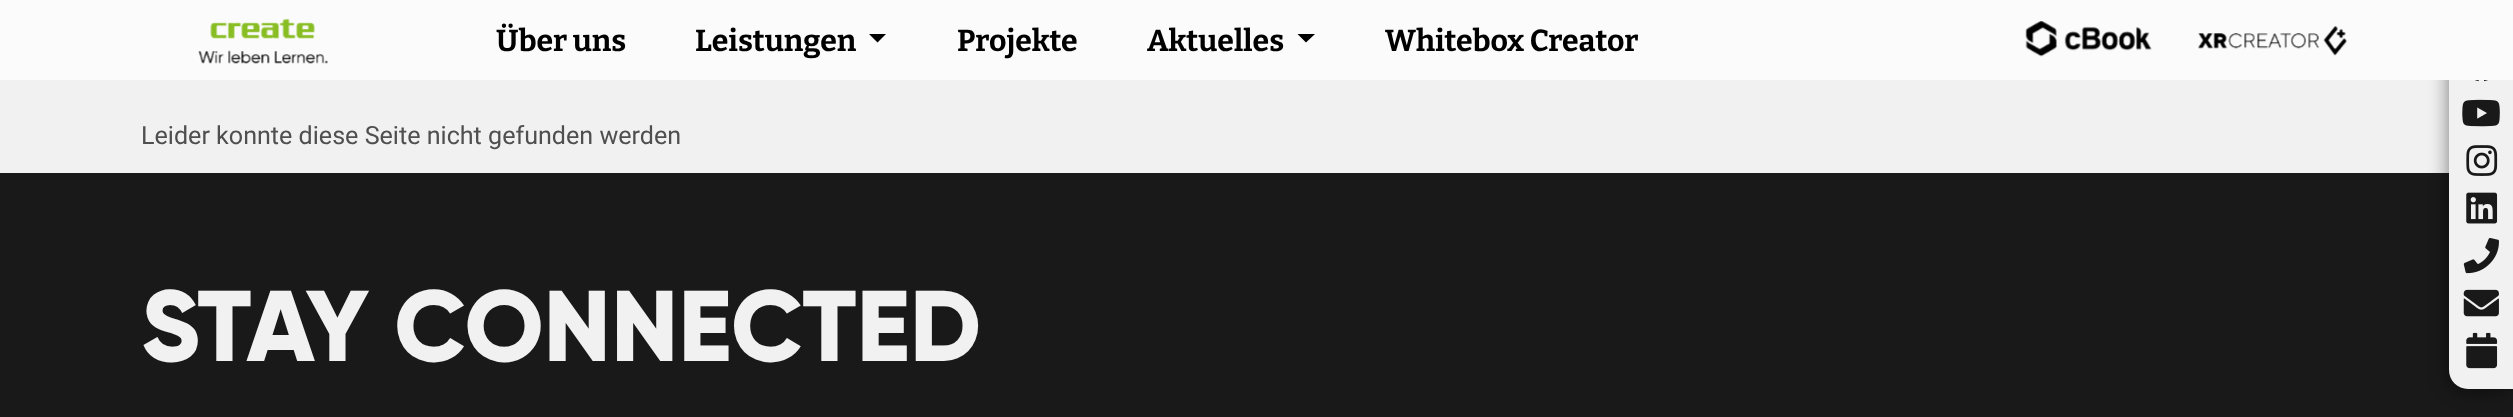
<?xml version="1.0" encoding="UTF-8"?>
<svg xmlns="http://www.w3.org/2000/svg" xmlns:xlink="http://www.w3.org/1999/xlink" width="2513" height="417">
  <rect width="100%" height="100%" fill="#f1f1f1" />
  <rect y="173" width="2513" height="244" fill="#191919" />
  <rect x="2449" y="31" width="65" height="360" rx="19" fill="#000000" fill-opacity="0.5" filter="blur(9.5px)" />
  <path d="M 2468 29 h 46 v 360 h -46 c -10.5 0 -19 -8.5 -19 -19 v -322 c 0 -10.5 8.5 -19 19 -19 z" fill="#f1f1f1" />
  <rect width="2513" height="80" fill="#fbfbfb" />
  <image x="198" y="18" width="130" height="46" xlink:href="image1.png" />
  <path d="M 869 34 h 17 l -8.5 8.5 z" fill="#000000" />
  <path d="M 1297.5 34 h 17.5 l -9 8.5 z" fill="#000000" />
  <image x="2025" y="21" width="127" height="36" xlink:href="image2.png" />
  <image x="2198" y="26" width="149" height="30" xlink:href="image3.png" />
  <image x="2475" y="80" width="13" height="2" xlink:href="image4.png" />
  <image x="2462" y="99" width="38" height="28" xlink:href="image5.png" />
  <image x="2466" y="145" width="32" height="31" xlink:href="image6.png" />
  <image x="2466" y="192" width="32" height="32" xlink:href="image7.png" />
  <image x="2463" y="238" width="36" height="36" xlink:href="image8.png" />
  <image x="2463" y="289" width="36" height="28" xlink:href="image9.png" />
  <image x="2466" y="332" width="32" height="37" xlink:href="image10.png" />
  <text x="496" y="51" style="font-family: Bitter; font-size: 30.25px; font-weight: bold; fill: #000000">Über uns</text>
  <text x="695" y="51" style="font-family: Bitter; font-size: 30.25px; font-weight: bold; fill: #000000">Leistungen</text>
  <text x="957" y="51" style="font-family: Bitter; font-size: 30.25px; font-weight: bold; fill: #000000">Projekte</text>
  <text x="1147" y="51" style="font-family: Bitter; font-size: 30.25px; font-weight: bold; fill: #000000">Aktuelles</text>
  <text x="1385" y="51" style="font-family: Bitter; font-size: 30.25px; font-weight: bold; fill: #000000">Whitebox Creator</text>
  <text x="141" y="144" style="font-family: Roboto; font-size: 25.1px; fill: #4f4f4f">Leider konnte diese Seite nicht gefunden werden</text>
  <text x="141" y="361" style="font-family: Gilroy; font-size: 100.5px; font-weight: 800; fill: #f1f1f1">STAY CONNECTED</text>
</svg>
